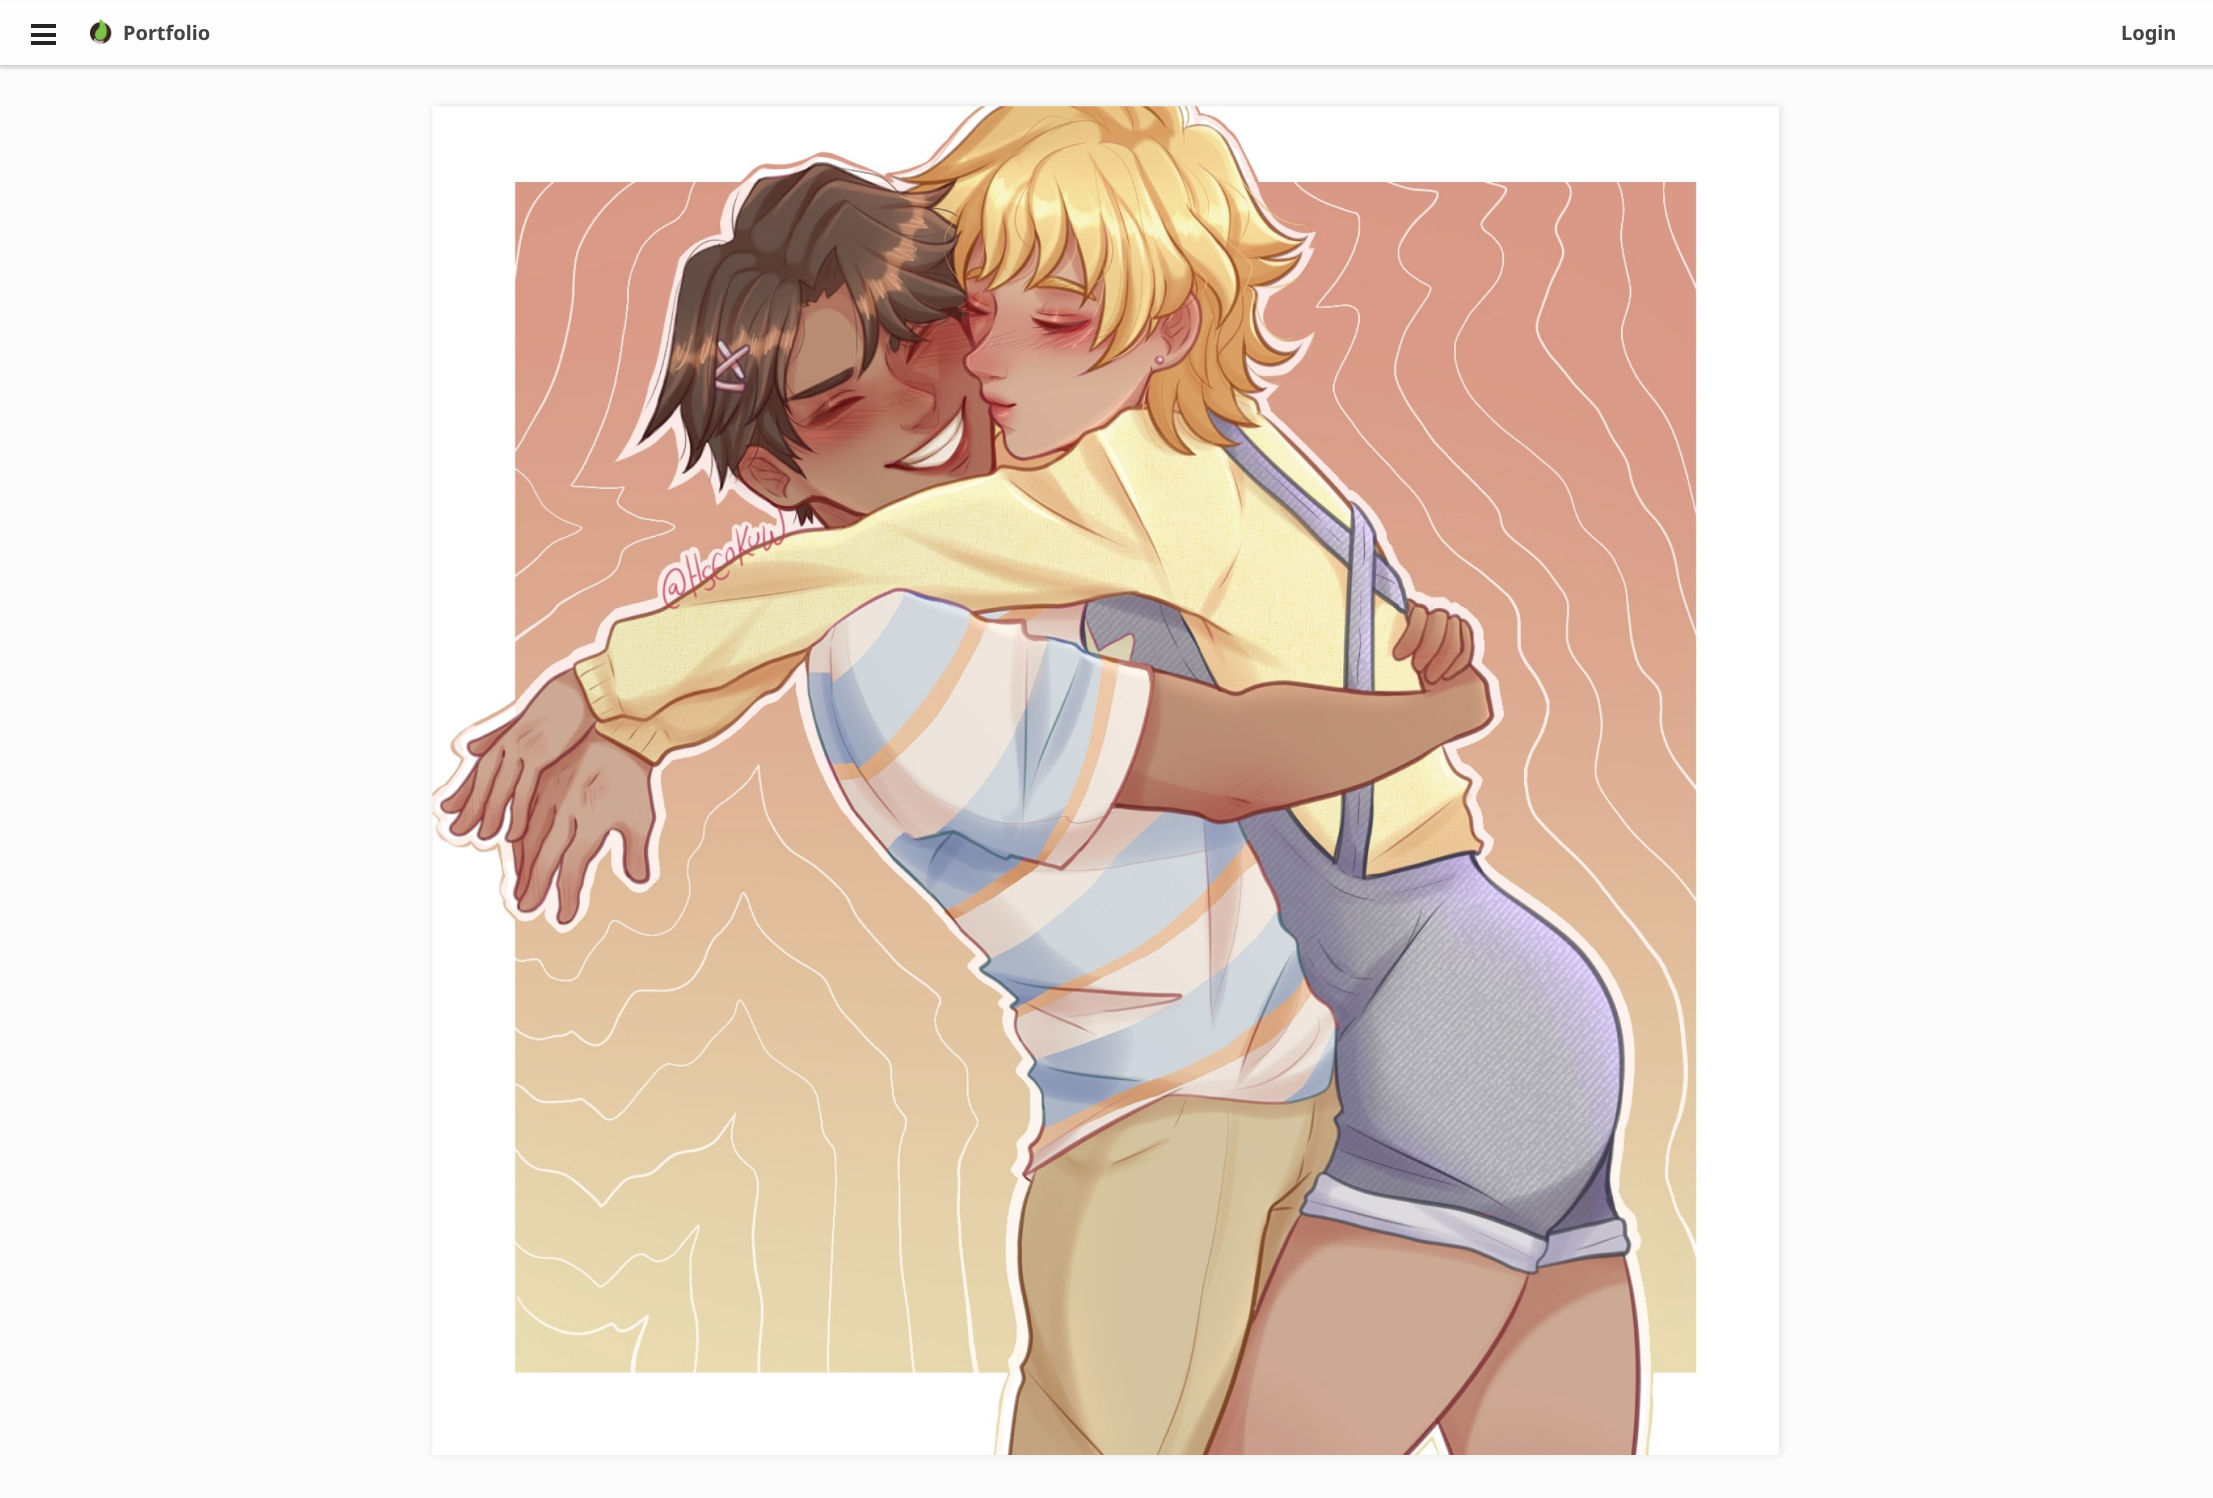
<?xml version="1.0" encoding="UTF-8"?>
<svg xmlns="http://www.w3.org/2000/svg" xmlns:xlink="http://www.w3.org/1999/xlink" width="2213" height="1498">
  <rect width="100%" height="100%" fill="#fcfcfc" />
  <rect y="3" width="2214" height="66" fill="#dddddd" filter="blur(1px)" />
  <rect y="1" width="2213" height="64" fill="#fefefe" />
  <rect y="65" width="2213" height="1" fill="#cccccc" />
  <rect x="31" y="24" width="25" height="4" fill="#242424" />
  <rect x="31" y="33" width="25" height="4" fill="#242424" />
  <rect x="31" y="41" width="25" height="4" fill="#242424" />
  <image x="90" y="18" width="22" height="26" xlink:href="image1.png" />
  <rect x="433" y="106" width="1348" height="1349" fill="#000000" fill-opacity="0.1" filter="blur(4px)" />
  <image x="432" y="106" width="1347" height="1349" xlink:href="image2.png" />
  <text x="123" y="40" style="font-family: Noto Sans; font-size: 20px; font-weight: bold; fill: #444444">Portfolio</text>
  <text x="2121" y="40" style="font-family: Noto Sans; font-size: 20px; font-weight: bold; fill: #444444">Login</text>
</svg>
